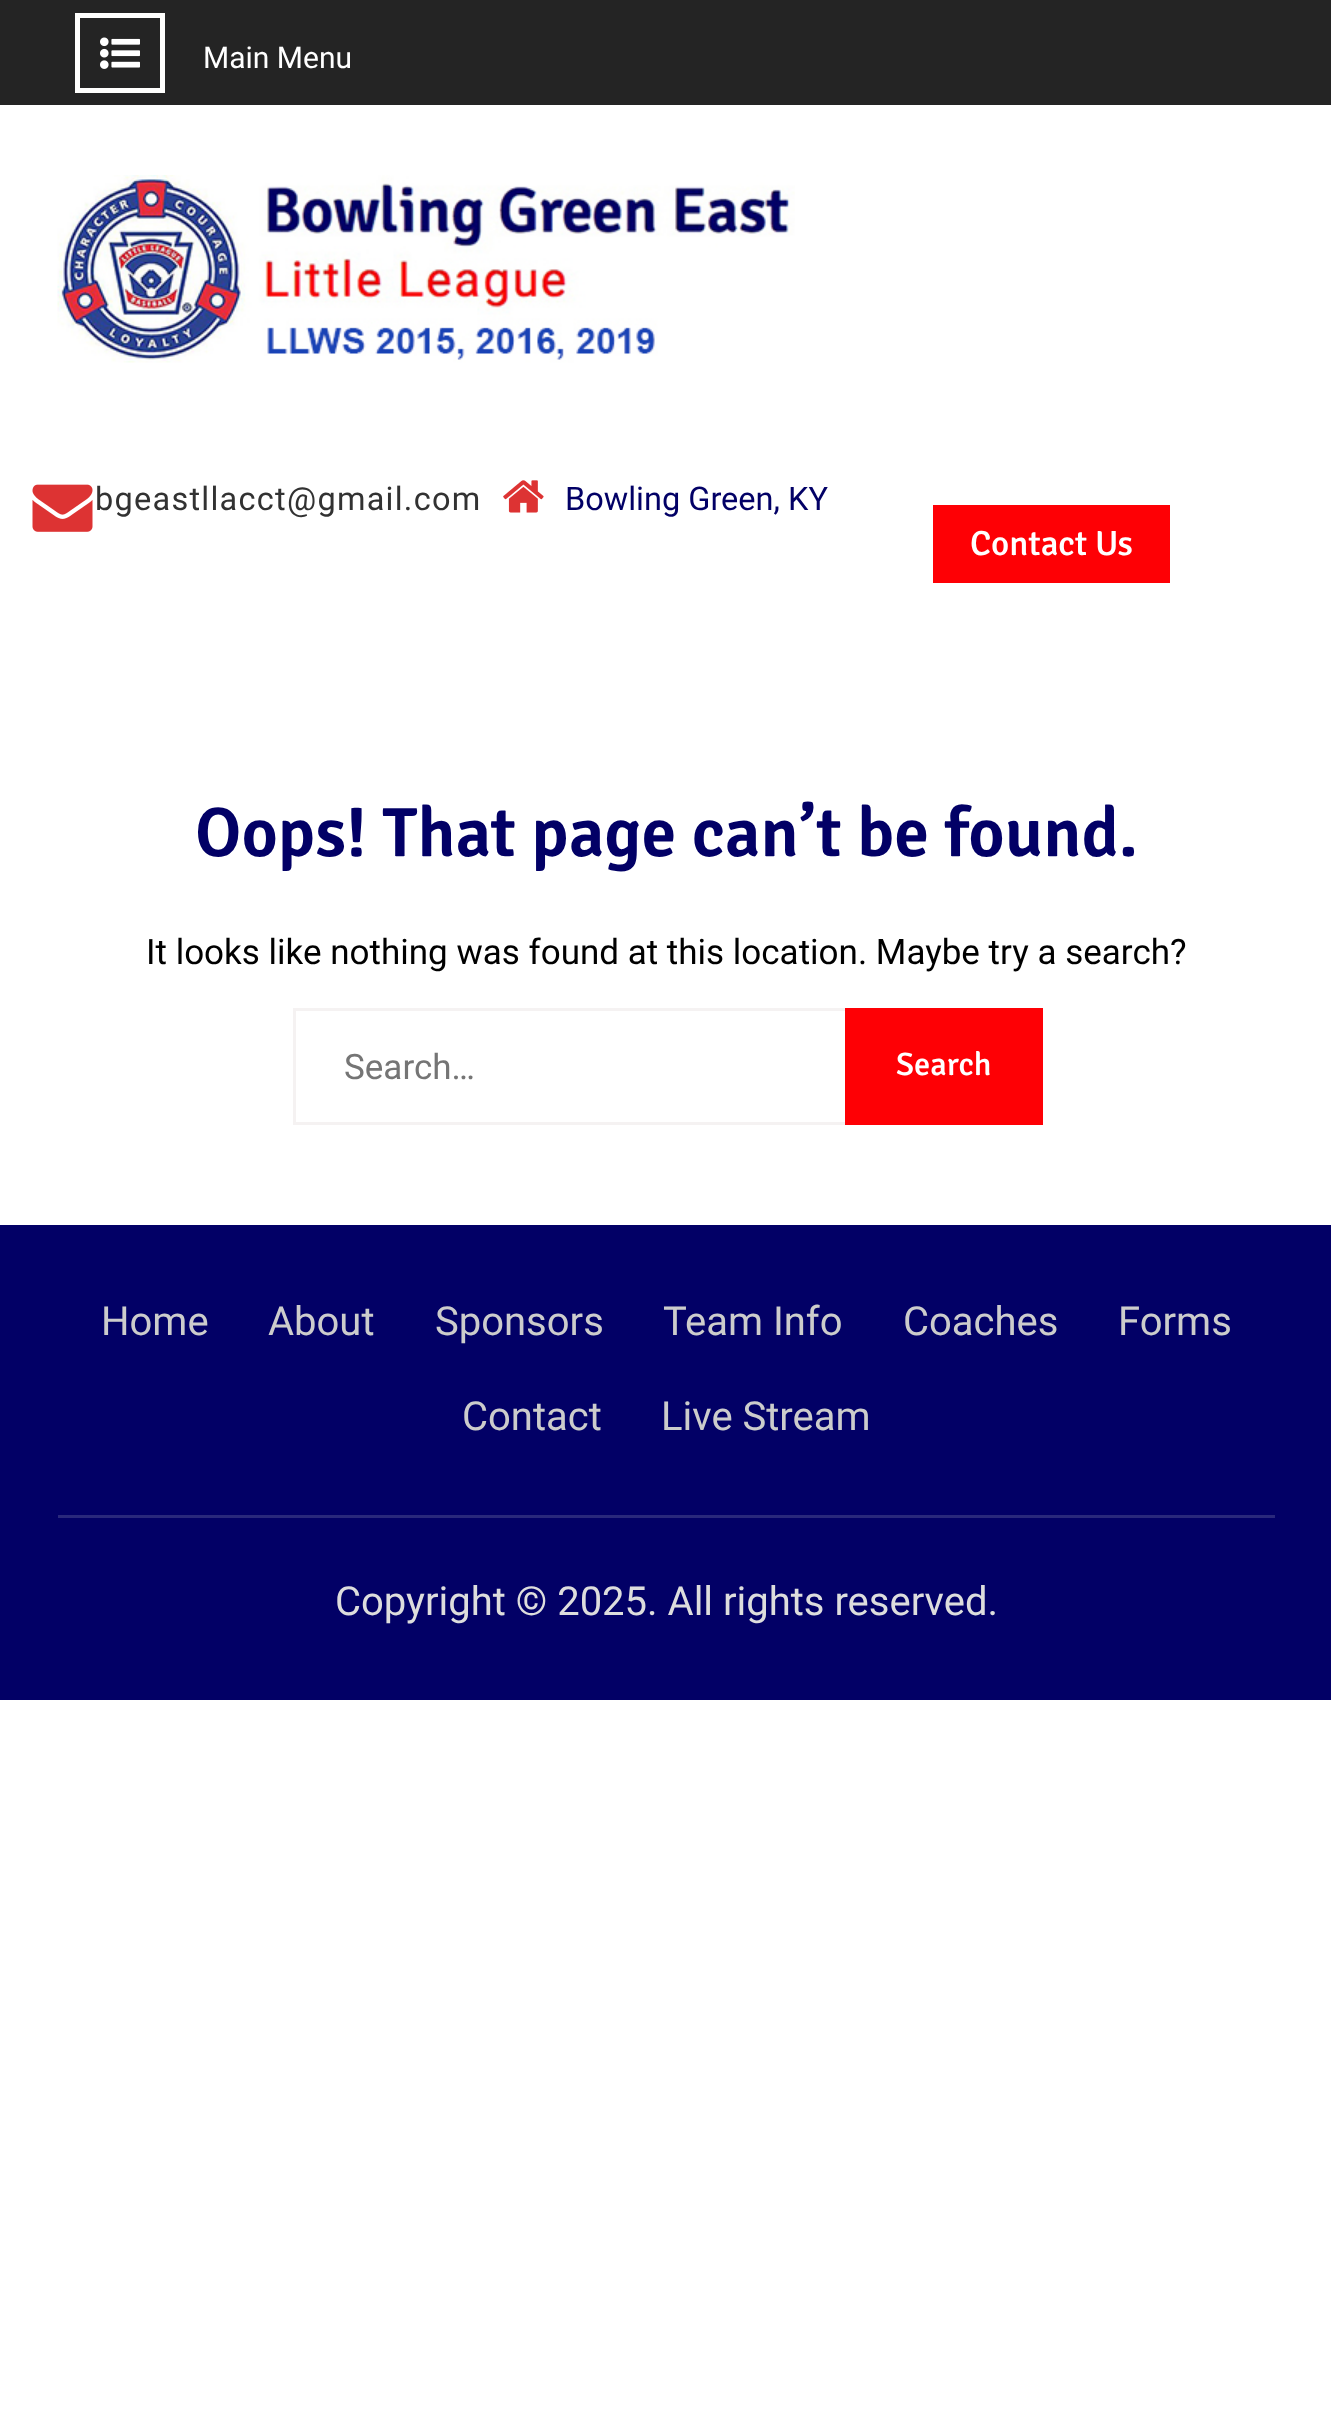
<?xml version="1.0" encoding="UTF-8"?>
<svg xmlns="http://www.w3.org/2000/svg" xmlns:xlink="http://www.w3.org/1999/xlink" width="1331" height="2426">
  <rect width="100%" height="100%" fill="#ffffff" />
  <rect width="1331" height="105" fill="#242424" />
  <rect x="77.5" y="15.5" width="85" height="75" fill="none" stroke="#fffffe" stroke-width="5" />
  <image x="100" y="37" width="40" height="32" xlink:href="image1.png" />
  <image x="57" y="175" width="738" height="188" xlink:href="image2.png" />
  <image x="32" y="484" width="61" height="48" xlink:href="image3.png" />
  <image x="503" y="480" width="41" height="33" xlink:href="image4.png" />
  <rect x="933" y="505" width="237" height="78" fill="#fe0005" />
  <rect x="294.5" y="1009.5" width="747" height="114" fill="none" stroke="#f5f2f2" stroke-width="3" />
  <rect x="845" y="1008" width="198" height="117" fill="#fe0005" />
  <rect y="1225" width="1331" height="475" fill="#020066" />
  <rect x="58" y="1515" width="1217" height="3" fill="#29287b" />
  <text x="203" y="68" style="font-family: Roboto; font-size: 30px; fill: #ffffff">Main Menu</text>
  <text x="95" y="510" style="font-family: Roboto; font-size: 32.5px; letter-spacing: 1.25px; fill: #323232">bgeastllacct@gmail.com</text>
  <text x="565" y="510" style="font-family: Roboto; font-size: 32.5px; fill: #020066">Bowling Green, KY</text>
  <text x="970" y="555" style="font-family: Signika; font-size: 35px; font-weight: 500; fill: #ffffff">Contact Us</text>
  <text x="195" y="856" style="font-family: Signika; font-size: 70px; font-weight: 600; fill: #020066">Oops! That page can’t be found.</text>
  <text x="146" y="964" style="font-family: Roboto; font-size: 35px; fill: #000000">It looks like nothing was found at this location. Maybe try a search?</text>
  <text x="344" y="1079" style="font-family: Roboto; font-size: 35px; fill: #757575">Search…</text>
  <text x="896" y="1075" style="font-family: Signika; font-size: 32.5px; font-weight: 500; fill: #ffffff">Search</text>
  <text x="101" y="1335" style="font-family: Roboto; font-size: 40px; fill: #cccccc">Home</text>
  <text x="268" y="1335" style="font-family: Roboto; font-size: 40px; fill: #cccccc">About</text>
  <text x="435" y="1335" style="font-family: Roboto; font-size: 40px; fill: #cccccc">Sponsors</text>
  <text x="663" y="1335" style="font-family: Roboto; font-size: 40px; fill: #cccccc">Team Info</text>
  <text x="903" y="1335" style="font-family: Roboto; font-size: 40px; fill: #cccccc">Coaches</text>
  <text x="1118" y="1335" style="font-family: Roboto; font-size: 40px; fill: #cccccc">Forms</text>
  <text x="462" y="1430" style="font-family: Roboto; font-size: 40px; fill: #cccccc">Contact</text>
  <text x="661" y="1430" style="font-family: Roboto; font-size: 40px; fill: #cccccc">Live Stream</text>
  <text x="335" y="1615" style="font-family: Roboto; font-size: 40px; fill: #dddddd">Copyright © 2025. All rights reserved.</text>
</svg>
